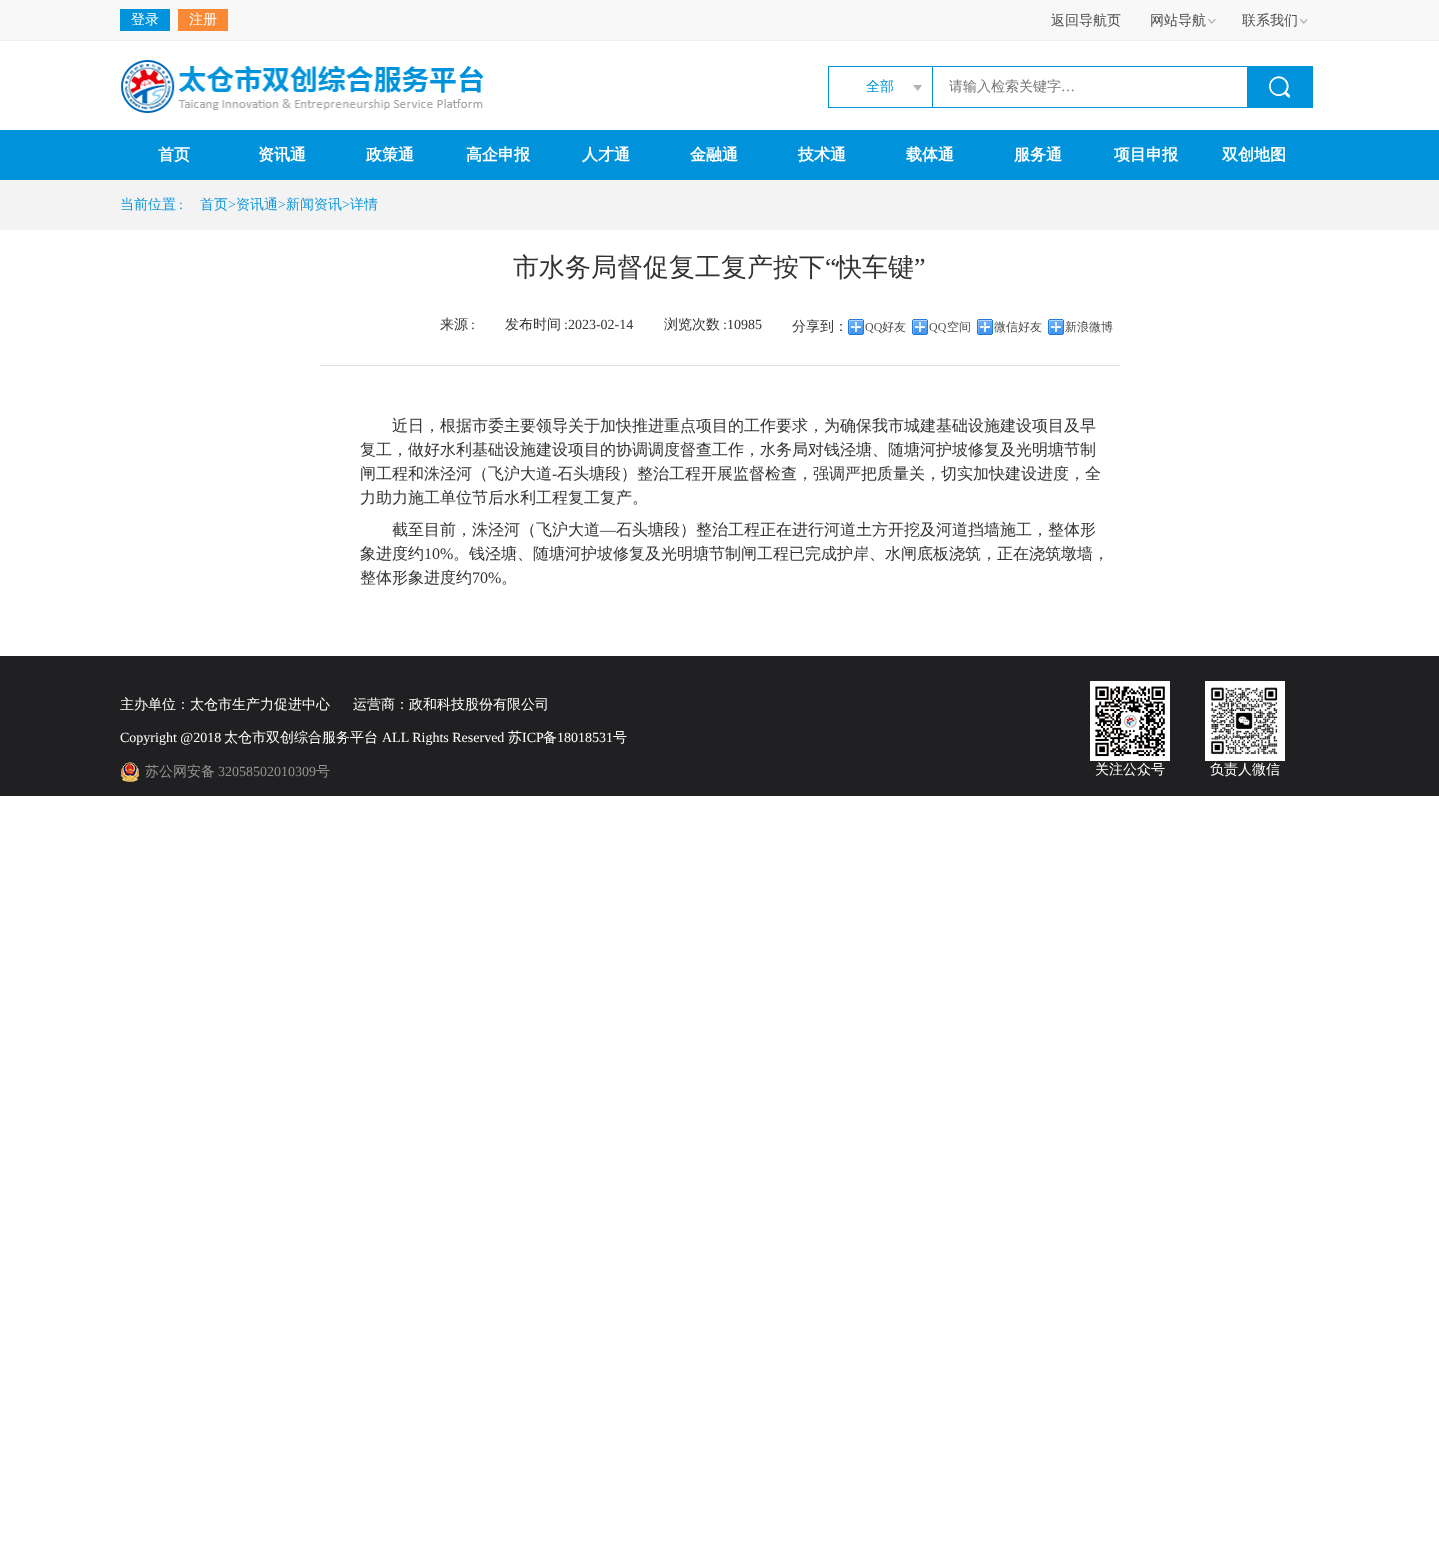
<?xml version="1.0" encoding="UTF-8"?>
<svg xmlns="http://www.w3.org/2000/svg" xmlns:xlink="http://www.w3.org/1999/xlink" width="1439" height="1563">
  <rect width="100%" height="100%" fill="#ffffff" />
  <rect width="1439" height="40" fill="#f8f8f8" />
  <rect y="40" width="1439" height="1" fill="#eeeeee" />
  <rect x="120" y="9" width="50" height="22" fill="#0092da" />
  <rect x="178" y="9" width="50" height="22" fill="#fa8936" />
  <image x="1208" y="19" width="8" height="5" xlink:href="image1.png" />
  <image x="1300" y="19" width="8" height="5" xlink:href="image1.png" />
  <image x="121" y="60" width="363" height="53" xlink:href="image2.png" />
  <rect x="828.5" y="66.5" width="421" height="41" fill="none" stroke="#0092da" />
  <image x="913" y="85" width="9" height="6" xlink:href="image3.png" />
  <rect x="932" y="67" width="1" height="40" fill="#0092da" />
  <rect x="1247" y="66" width="66" height="42" fill="#0092da" />
  <image x="1269" y="76" width="21" height="22" xlink:href="image4.png" />
  <rect y="130" width="1439" height="50" fill="#0092da" />
  <rect y="180" width="1439" height="50" fill="#f3f3f3" />
  <rect x="320" y="365" width="800" height="1" fill="#dddddd" />
  <image x="848" y="319" width="16" height="16" xlink:href="image5.png" />
  <image x="912" y="319" width="16" height="16" xlink:href="image5.png" />
  <image x="977" y="319" width="16" height="16" xlink:href="image5.png" />
  <image x="1048" y="319" width="16" height="16" xlink:href="image5.png" />
  <rect y="656" width="1439" height="140" fill="#202022" />
  <image x="121" y="762" width="18" height="20" xlink:href="image6.png" />
  <image x="1090" y="681" width="80" height="80" xlink:href="image7.png" />
  <image x="1205" y="681" width="80" height="80" xlink:href="image8.png" />
  <text x="131" y="24" style="font-family: WenQuanYi Zen Hei; font-size: 14px; font-weight: 500; fill: #ffffff">登录</text>
  <text x="189" y="24" style="font-family: WenQuanYi Zen Hei; font-size: 14px; font-weight: 500; fill: #ffffff">注册</text>
  <text x="1051" y="25" style="font-family: WenQuanYi Zen Hei; font-size: 14px; font-weight: 500; fill: #4d4d4d">返回导航页</text>
  <text x="1150" y="25" style="font-family: WenQuanYi Zen Hei; font-size: 14px; font-weight: 500; fill: #4d4d4d">网站导航</text>
  <text x="1242" y="25" style="font-family: WenQuanYi Zen Hei; font-size: 14px; font-weight: 500; fill: #4d4d4d">联系我们</text>
  <text x="866" y="91" style="font-family: WenQuanYi Zen Hei; font-size: 14px; font-weight: 500; fill: #0092da">全部</text>
  <text x="949" y="91" style="font-family: WenQuanYi Zen Hei; font-size: 14px; font-weight: 500; fill: #757575">请输入检索关键字</text>
  <text x="1061" y="91" style="font-family: Liberation Serif; font-size: 14px; fill: #757575">…</text>
  <text x="158" y="160" style="font-family: WenQuanYi Zen Hei; font-size: 16px; font-weight: bold; fill: #ffffff">首页</text>
  <text x="258" y="160" style="font-family: WenQuanYi Zen Hei; font-size: 16px; font-weight: bold; fill: #ffffff">资讯通</text>
  <text x="366" y="160" style="font-family: WenQuanYi Zen Hei; font-size: 16px; font-weight: bold; fill: #ffffff">政策通</text>
  <text x="466" y="160" style="font-family: WenQuanYi Zen Hei; font-size: 16px; font-weight: bold; fill: #ffffff">高企申报</text>
  <text x="582" y="160" style="font-family: WenQuanYi Zen Hei; font-size: 16px; font-weight: bold; fill: #ffffff">人才通</text>
  <text x="690" y="160" style="font-family: WenQuanYi Zen Hei; font-size: 16px; font-weight: bold; fill: #ffffff">金融通</text>
  <text x="798" y="160" style="font-family: WenQuanYi Zen Hei; font-size: 16px; font-weight: bold; fill: #ffffff">技术通</text>
  <text x="906" y="160" style="font-family: WenQuanYi Zen Hei; font-size: 16px; font-weight: bold; fill: #ffffff">载体通</text>
  <text x="1014" y="160" style="font-family: WenQuanYi Zen Hei; font-size: 16px; font-weight: bold; fill: #ffffff">服务通</text>
  <text x="1114" y="160" style="font-family: WenQuanYi Zen Hei; font-size: 16px; font-weight: bold; fill: #ffffff">项目申报</text>
  <text x="1222" y="160" style="font-family: WenQuanYi Zen Hei; font-size: 16px; font-weight: bold; fill: #ffffff">双创地图</text>
  <text x="120" y="209" style="font-family: WenQuanYi Zen Hei; font-size: 14px; font-weight: 500; fill: #1296db">当前位置</text>
  <text x="179" y="209" style="font-family: Liberation Serif; font-size: 14px; fill: #1296db">:</text>
  <text x="200" y="209" style="font-family: WenQuanYi Zen Hei; font-size: 14px; font-weight: 500; fill: #1296db">首页</text>
  <text x="228" y="209" style="font-family: Liberation Serif; font-size: 14px; fill: #1296db">&gt;</text>
  <text x="236" y="209" style="font-family: WenQuanYi Zen Hei; font-size: 14px; font-weight: 500; fill: #1296db">资讯通</text>
  <text x="278" y="209" style="font-family: Liberation Serif; font-size: 14px; fill: #1296db">&gt;</text>
  <text x="286" y="209" style="font-family: WenQuanYi Zen Hei; font-size: 14px; font-weight: 500; fill: #1296db">新闻资讯</text>
  <text x="342" y="209" style="font-family: Liberation Serif; font-size: 14px; fill: #1296db">&gt;</text>
  <text x="350" y="209" style="font-family: WenQuanYi Zen Hei; font-size: 14px; font-weight: 500; fill: #1296db">详情</text>
  <text x="513" y="276" style="font-family: WenQuanYi Zen Hei; font-size: 26px; font-weight: 500; fill: #333333">市水务局督促复工复产按下</text>
  <text x="825" y="276" style="font-family: Liberation Serif; font-size: 26px; fill: #333333">“</text>
  <text x="836" y="276" style="font-family: WenQuanYi Zen Hei; font-size: 26px; font-weight: 500; fill: #333333">快车键</text>
  <text x="914" y="276" style="font-family: Liberation Serif; font-size: 26px; fill: #333333">”</text>
  <text x="440" y="329" style="font-family: WenQuanYi Zen Hei; font-size: 14px; font-weight: 500; fill: #333333">来源</text>
  <text x="471" y="329" style="font-family: Liberation Serif; font-size: 14px; fill: #333333">:</text>
  <text x="505" y="329" style="font-family: WenQuanYi Zen Hei; font-size: 14px; font-weight: 500; fill: #333333">发布时间</text>
  <text x="564" y="329" style="font-family: Liberation Serif; font-size: 14px; fill: #333333">:2023-02-14</text>
  <text x="664" y="329" style="font-family: WenQuanYi Zen Hei; font-size: 14px; font-weight: 500; fill: #333333">浏览次数</text>
  <text x="723" y="329" style="font-family: Liberation Serif; font-size: 14px; fill: #333333">:10985</text>
  <text x="792" y="331" style="font-family: WenQuanYi Zen Hei; font-size: 14px; font-weight: 500; fill: #333333">分享到：</text>
  <text x="865" y="331" style="font-family: Liberation Serif; font-size: 12px; fill: #4d4d4d">QQ</text>
  <text x="882" y="331" style="font-family: WenQuanYi Zen Hei; font-size: 12px; font-weight: 500; fill: #4d4d4d">好友</text>
  <text x="929" y="331" style="font-family: Liberation Serif; font-size: 12px; fill: #4d4d4d">QQ</text>
  <text x="947" y="331" style="font-family: WenQuanYi Zen Hei; font-size: 12px; font-weight: 500; fill: #4d4d4d">空间</text>
  <text x="994" y="331" style="font-family: WenQuanYi Zen Hei; font-size: 12px; font-weight: 500; fill: #4d4d4d">微信好友</text>
  <text x="1065" y="331" style="font-family: WenQuanYi Zen Hei; font-size: 12px; font-weight: 500; fill: #4d4d4d">新浪微博</text>
  <text x="392" y="431" style="font-family: WenQuanYi Zen Hei; font-size: 16px; font-weight: 500; fill: #333333">近日，根据市委主要领导关于加快推进重点项目的工作要求，为确保我市城建基础设施建设项目及早</text>
  <text x="360" y="455" style="font-family: WenQuanYi Zen Hei; font-size: 16px; font-weight: 500; fill: #333333">复工，做好水利基础设施建设项目的协调调度督查工作，水务局对钱泾塘、随塘河护坡修复及光明塘节制</text>
  <text x="360" y="479" style="font-family: WenQuanYi Zen Hei; font-size: 16px; font-weight: 500; fill: #333333">闸工程和洙泾河（飞沪大道</text>
  <text x="552" y="479" style="font-family: Liberation Serif; font-size: 16px; fill: #333333">-</text>
  <text x="557" y="479" style="font-family: WenQuanYi Zen Hei; font-size: 16px; font-weight: 500; fill: #333333">石头塘段）整治工程开展监督检查，强调严把质量关，切实加快建设进度，全</text>
  <text x="360" y="503" style="font-family: WenQuanYi Zen Hei; font-size: 16px; font-weight: 500; fill: #333333">力助力施工单位节后水利工程复工复产。</text>
  <text x="392" y="535" style="font-family: WenQuanYi Zen Hei; font-size: 16px; font-weight: 500; fill: #333333">截至目前，洙泾河（飞沪大道</text>
  <text x="600" y="535" style="font-family: Liberation Serif; font-size: 16px; fill: #333333">—</text>
  <text x="616" y="535" style="font-family: WenQuanYi Zen Hei; font-size: 16px; font-weight: 500; fill: #333333">石头塘段）整治工程正在进行河道土方开挖及河道挡墙施工，整体形</text>
  <text x="360" y="559" style="font-family: WenQuanYi Zen Hei; font-size: 16px; font-weight: 500; fill: #333333">象进度约</text>
  <text x="424" y="559" style="font-family: Liberation Serif; font-size: 16px; fill: #333333">10%</text>
  <text x="453" y="559" style="font-family: WenQuanYi Zen Hei; font-size: 16px; font-weight: 500; fill: #333333">。钱泾塘、随塘河护坡修复及光明塘节制闸工程已完成护岸、水闸底板浇筑，正在浇筑墩墙，</text>
  <text x="360" y="583" style="font-family: WenQuanYi Zen Hei; font-size: 16px; font-weight: 500; fill: #333333">整体形象进度约</text>
  <text x="472" y="583" style="font-family: Liberation Serif; font-size: 16px; fill: #333333">70%</text>
  <text x="501" y="583" style="font-family: WenQuanYi Zen Hei; font-size: 16px; font-weight: 500; fill: #333333">。</text>
  <text x="120" y="709" style="font-family: WenQuanYi Zen Hei; font-size: 14px; font-weight: 500; fill: #ffffff">主办单位：太仓市生产力促进中心</text>
  <text x="353" y="709" style="font-family: WenQuanYi Zen Hei; font-size: 14px; font-weight: 500; fill: #ffffff">运营商：政和科技股份有限公司</text>
  <text x="120" y="742" style="font-family: Liberation Serif; font-size: 14px; fill: #ffffff">Copyright @2018</text>
  <text x="224" y="742" style="font-family: WenQuanYi Zen Hei; font-size: 14px; font-weight: 500; fill: #ffffff">太仓市双创综合服务平台</text>
  <text x="382" y="742" style="font-family: Liberation Serif; font-size: 14px; fill: #ffffff">ALL Rights Reserved</text>
  <text x="508" y="742" style="font-family: WenQuanYi Zen Hei; font-size: 14px; font-weight: 500; fill: #ffffff">苏</text>
  <text x="522" y="742" style="font-family: Liberation Serif; font-size: 14px; fill: #ffffff">ICP</text>
  <text x="543" y="742" style="font-family: WenQuanYi Zen Hei; font-size: 14px; font-weight: 500; fill: #ffffff">备</text>
  <text x="557" y="742" style="font-family: Liberation Serif; font-size: 14px; fill: #ffffff">18018531</text>
  <text x="613" y="742" style="font-family: WenQuanYi Zen Hei; font-size: 14px; font-weight: 500; fill: #ffffff">号</text>
  <text x="145" y="776" style="font-family: WenQuanYi Zen Hei; font-size: 14px; font-weight: 500; fill: #939393">苏公网安备</text>
  <text x="218" y="776" style="font-family: Liberation Serif; font-size: 14px; fill: #939393">32058502010309</text>
  <text x="316" y="776" style="font-family: WenQuanYi Zen Hei; font-size: 14px; font-weight: 500; fill: #939393">号</text>
  <text x="1095" y="774" style="font-family: WenQuanYi Zen Hei; font-size: 14px; font-weight: 500; fill: #ffffff">关注公众号</text>
  <text x="1210" y="774" style="font-family: WenQuanYi Zen Hei; font-size: 14px; font-weight: 500; fill: #ffffff">负责人微信</text>
</svg>
